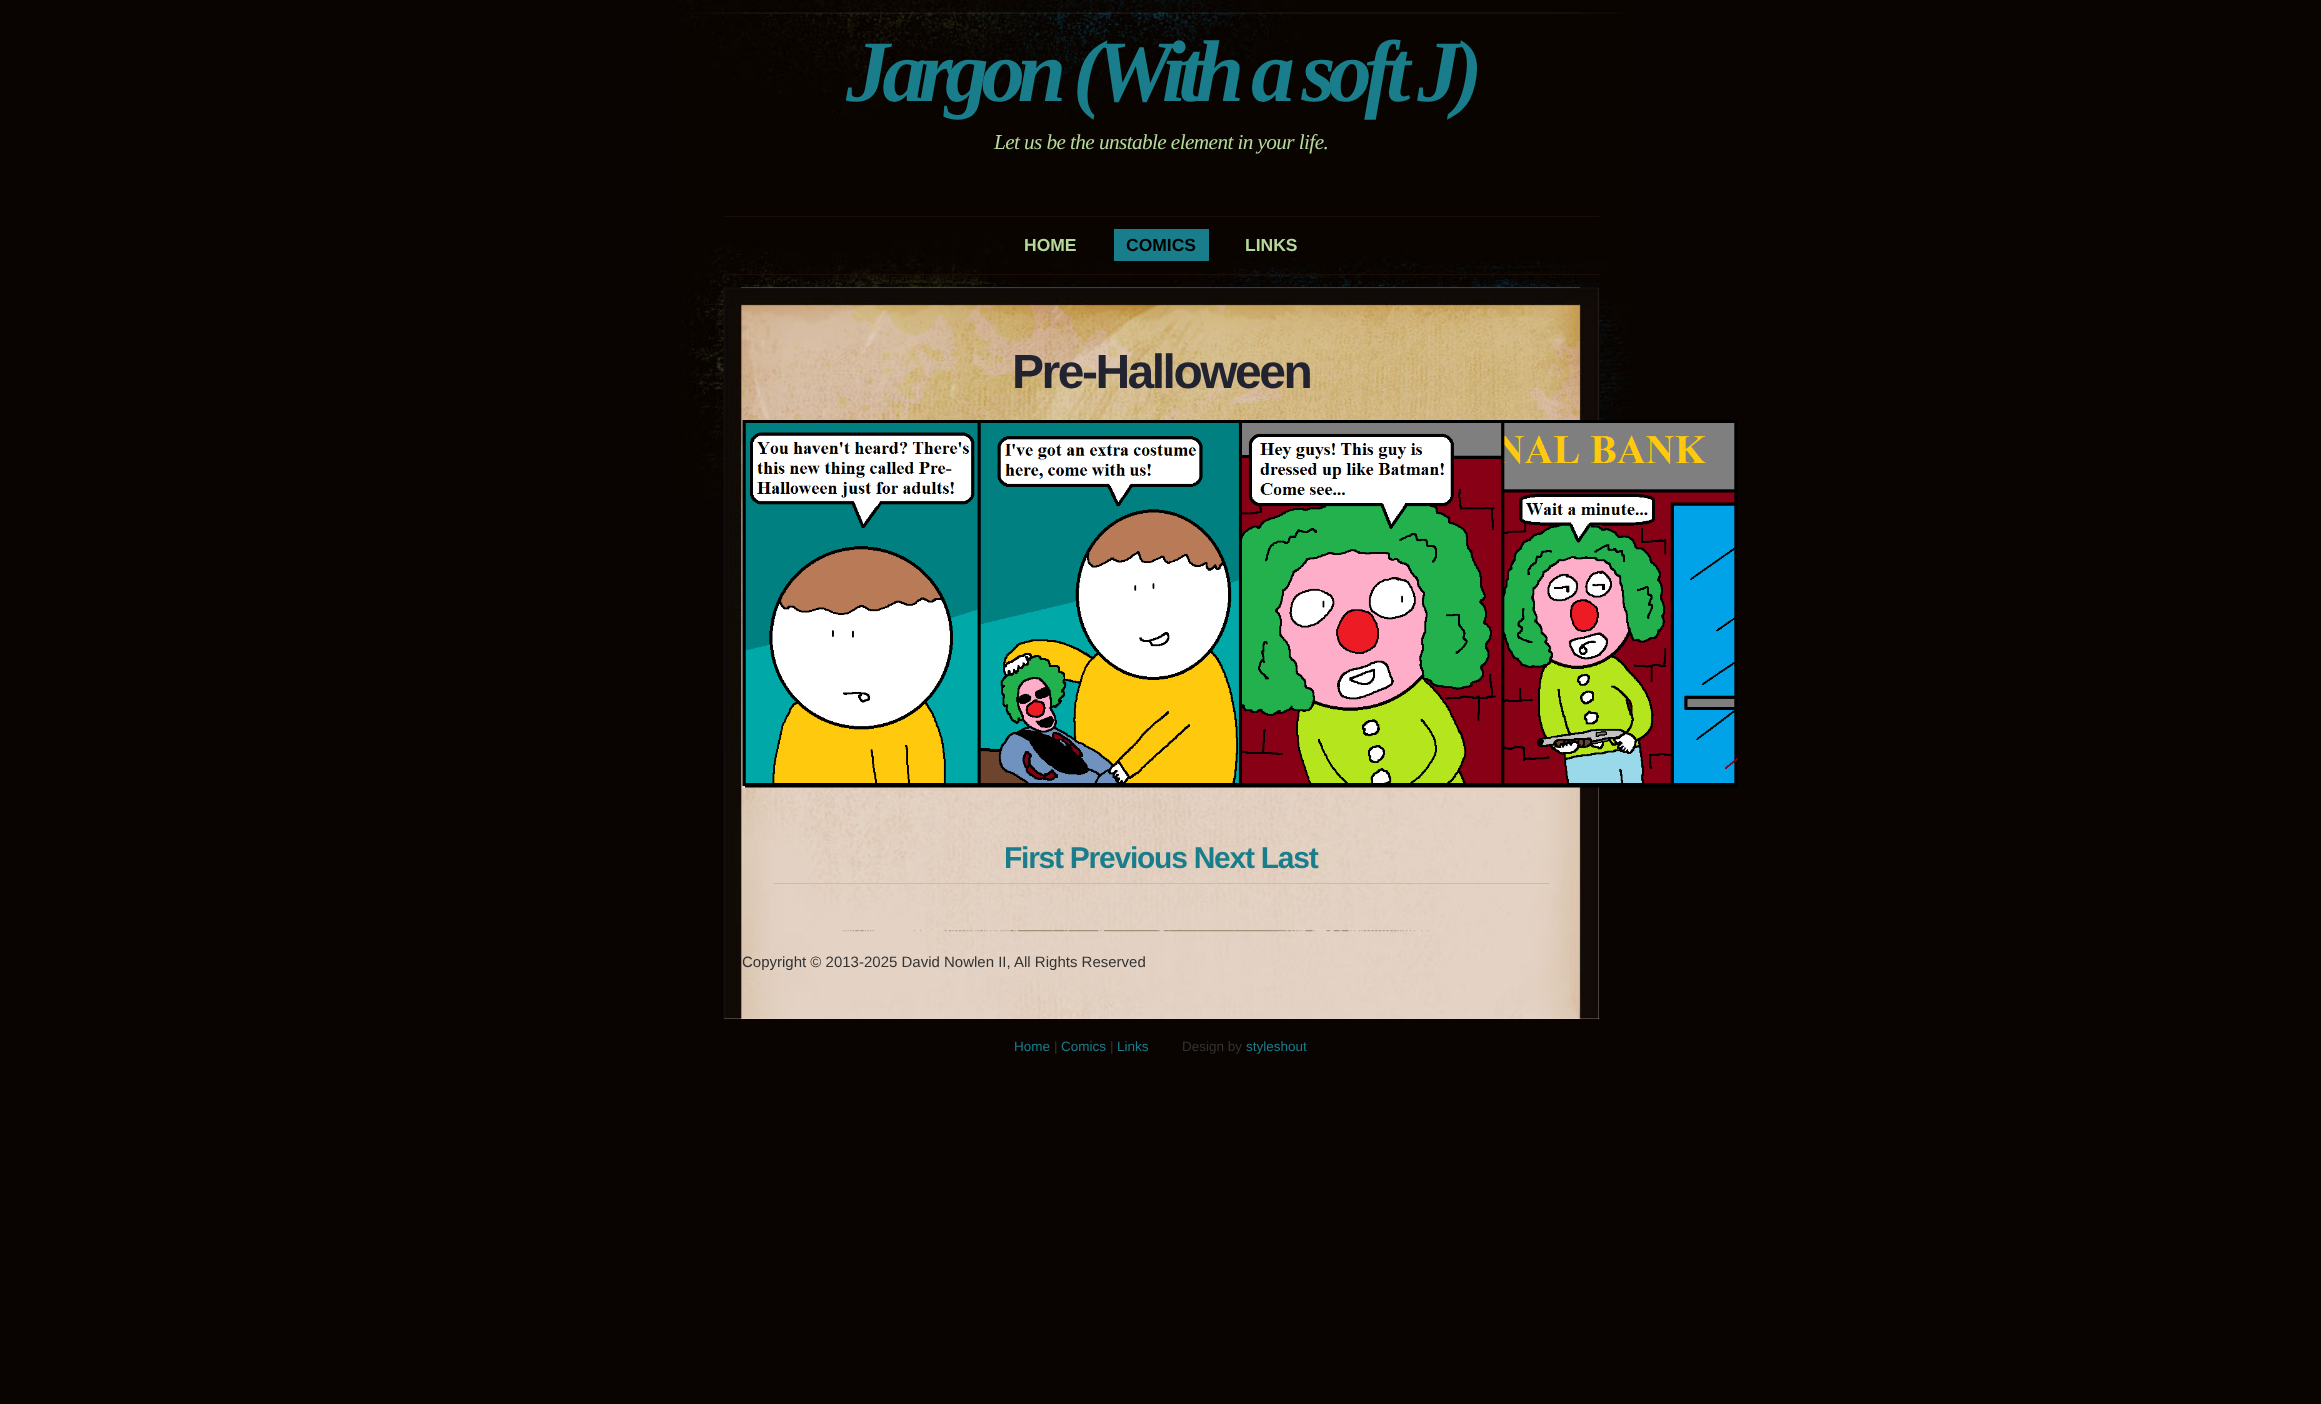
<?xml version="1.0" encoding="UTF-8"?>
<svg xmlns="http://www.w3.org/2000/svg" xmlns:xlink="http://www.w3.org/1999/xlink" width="2321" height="1404">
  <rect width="100%" height="100%" fill="#090401" />
  <image x="679" y="0" width="952" height="500" xlink:href="image1.png" />
  <rect x="724" y="216" width="875" height="1" fill="#1a0e06" />
  <rect x="724" y="274" width="875" height="1" fill="#1a0e06" />
  <rect x="1114" y="229" width="95" height="32" fill="#197d8b" />
  <rect x="724" y="288" width="875" height="731" fill="#eadacb" />
  <image x="723" y="287" width="876" height="732" xlink:href="image2.png" />
  <image x="723" y="287" width="876" height="468" xlink:href="image3.png" />
  <image x="842" y="930" width="587" height="2" xlink:href="image4.png" />
  <image x="742" y="420" width="996" height="368" xlink:href="image5.png" />
  <rect x="774" y="883" width="775" height="1" fill="#d2baa2" />
  <text x="846" y="101" style="font-family: Liberation Serif; font-size: 87.5px; font-weight: bold; font-style: italic; letter-spacing: -7.5px; fill: #197d8b">Jargon (With a soft J)</text>
  <text x="994" y="149" style="font-family: Liberation Serif; font-size: 21.25px; font-style: italic; letter-spacing: -0.6px; fill: #b6d99b">Let us be the unstable element in your life.</text>
  <text x="1024" y="251" style="font-family: Liberation Sans; font-size: 17.5px; font-weight: bold; fill: #b6d99b">HOME</text>
  <text x="1126" y="251" style="font-family: Liberation Sans; font-size: 17.5px; font-weight: bold; fill: #000000">COMICS</text>
  <text x="1245" y="251" style="font-family: Liberation Sans; font-size: 17.5px; font-weight: bold; fill: #b6d99b">LINKS</text>
  <text x="1012" y="388" style="font-family: Liberation Sans; font-size: 48px; font-weight: bold; letter-spacing: -2.5px; fill: #222331">Pre-Halloween</text>
  <text x="1004" y="868" style="font-family: Liberation Sans; font-size: 30px; font-weight: bold; letter-spacing: -1.25px; fill: #197d8b">First Previous Next Last</text>
  <text x="742" y="967" style="font-family: Liberation Sans; font-size: 15px; fill: #333333">Copyright © 2013-2025 David Nowlen II, All Rights Reserved</text>
  <text x="1014" y="1051" style="font-family: Liberation Sans; font-size: 13.5px; fill: #197d8b">Home</text>
  <text x="1054" y="1051" style="font-family: Liberation Sans; font-size: 13.5px; fill: #333333">|</text>
  <text x="1061" y="1051" style="font-family: Liberation Sans; font-size: 13.5px; fill: #197d8b">Comics</text>
  <text x="1110" y="1051" style="font-family: Liberation Sans; font-size: 13.5px; fill: #333333">|</text>
  <text x="1117" y="1051" style="font-family: Liberation Sans; font-size: 13.5px; fill: #197d8b">Links</text>
  <text x="1182" y="1051" style="font-family: Liberation Sans; font-size: 13.5px; fill: #333333">Design by</text>
  <text x="1246" y="1051" style="font-family: Liberation Sans; font-size: 13.5px; fill: #197d8b">styleshout</text>
</svg>
